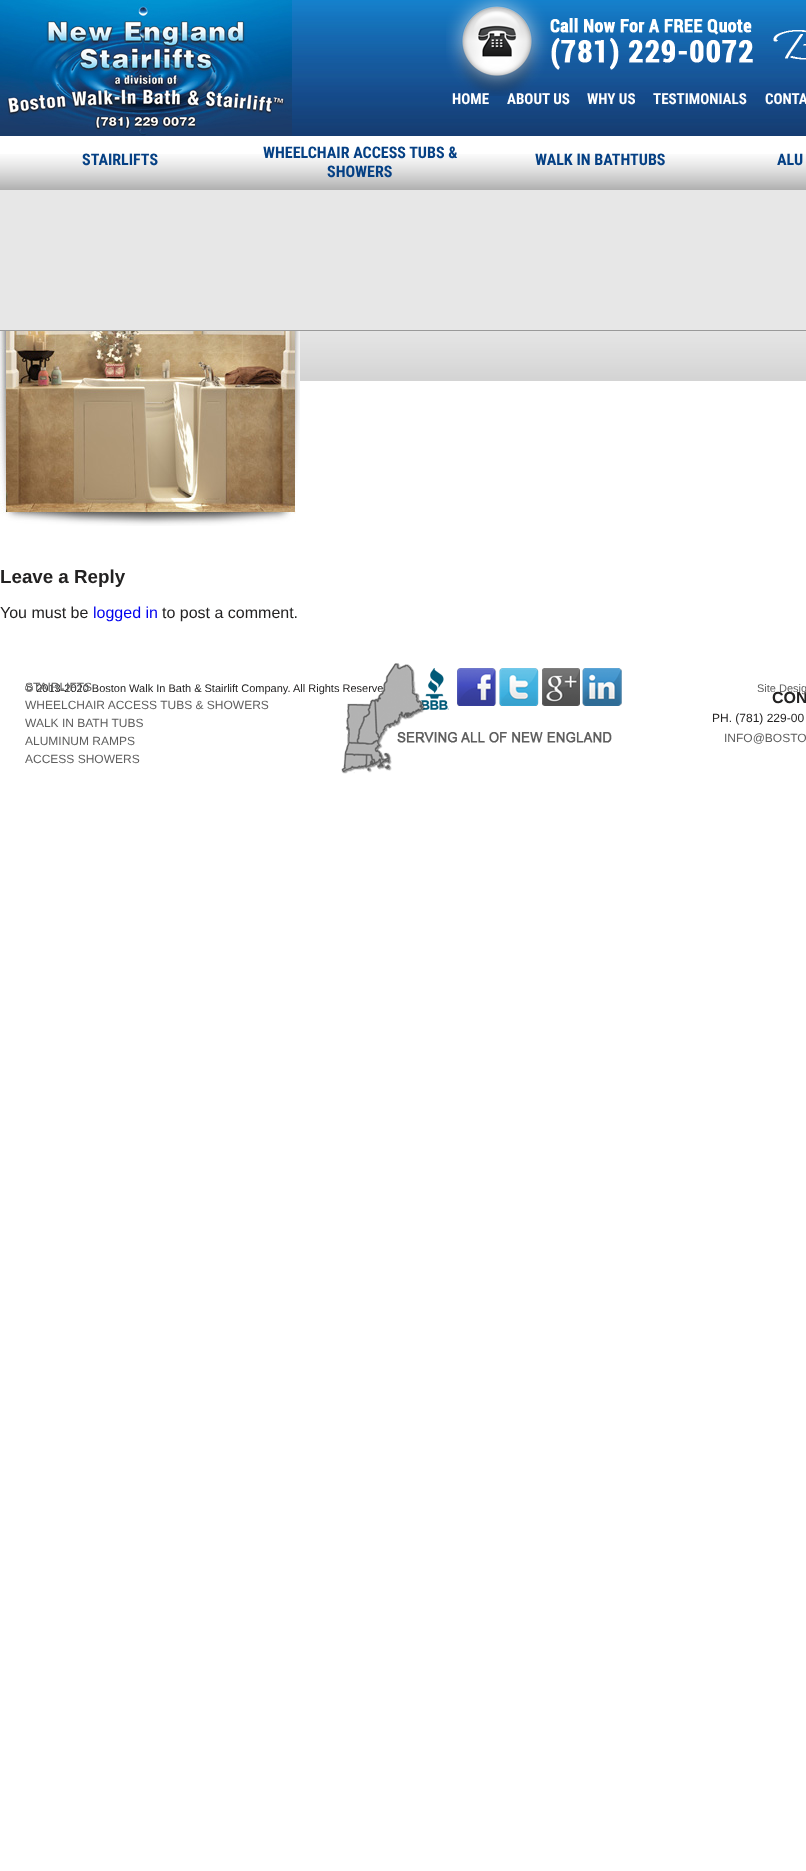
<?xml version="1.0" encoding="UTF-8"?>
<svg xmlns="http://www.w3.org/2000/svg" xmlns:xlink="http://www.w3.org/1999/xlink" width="806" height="1871">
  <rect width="100%" height="100%" fill="#ffffff" />
  <image x="292" y="0" width="514" height="136" xlink:href="image1.png" />
  <image x="0" y="0" width="292" height="136" xlink:href="image2.png" />
  <image x="446" y="0" width="360" height="96" xlink:href="image3.png" />
  <image x="0" y="154" width="806" height="36" xlink:href="image4.png" />
  <image x="0" y="331" width="300" height="195" xlink:href="image5.png" />
  <rect y="190" width="806" height="140" fill="#e7e7e7" />
  <rect y="330" width="806" height="1" fill="#999999" />
  <image x="300" y="331" width="506" height="50" xlink:href="image7.png" />
  <image x="421" y="668" width="28" height="42" xlink:href="image8.png" />
  <image x="457" y="668" width="40" height="38" xlink:href="image9.png" />
  <image x="499" y="668" width="40" height="38" xlink:href="image10.png" />
  <image x="542" y="668" width="38" height="38" xlink:href="image11.png" />
  <image x="582" y="668" width="40" height="38" xlink:href="image12.png" />
  <text x="452" y="104" style="font-family: Roboto Condensed; font-size: 15px; font-weight: bold; fill: #ffffff">HOME</text>
  <text x="507" y="104" style="font-family: Roboto Condensed; font-size: 15px; font-weight: bold; fill: #ffffff">ABOUT US</text>
  <text x="587" y="104" style="font-family: Roboto Condensed; font-size: 15px; font-weight: bold; fill: #ffffff">WHY US</text>
  <text x="653" y="104" style="font-family: Roboto Condensed; font-size: 15px; font-weight: bold; fill: #ffffff">TESTIMONIALS</text>
  <text x="765" y="104" style="font-family: Roboto Condensed; font-size: 15px; font-weight: bold; fill: #ffffff">CONTA</text>
  <text x="82" y="165" style="font-family: Roboto Condensed; font-size: 16px; font-weight: bold; fill: #054084">STAIRLIFTS</text>
  <text x="263" y="158" style="font-family: Roboto Condensed; font-size: 16px; font-weight: bold; fill: #054084">WHEELCHAIR ACCESS TUBS &amp;</text>
  <text x="327" y="177" style="font-family: Roboto Condensed; font-size: 16px; font-weight: bold; fill: #054084">SHOWERS</text>
  <text x="535" y="165" style="font-family: Roboto Condensed; font-size: 16px; font-weight: bold; fill: #054084">WALK IN BATHTUBS</text>
  <text x="777" y="165" style="font-family: Roboto Condensed; font-size: 16px; font-weight: bold; fill: #054084">ALU</text>
  <text x="0" y="583" style="font-family: Liberation Sans; font-size: 18.75px; font-weight: bold; fill: #232222">Leave a Reply</text>
  <text x="0" y="618" style="font-family: Liberation Sans; font-size: 16px; fill: #232222">You must be</text>
  <text x="93" y="618" style="font-family: Liberation Sans; font-size: 16px; fill: #0000ee">logged in</text>
  <text x="162" y="618" style="font-family: Liberation Sans; font-size: 16px; fill: #232222">to post a comment.</text>
  <text x="25" y="709" style="font-family: Liberation Sans; font-size: 12px; fill: #5e5e5e">WHEELCHAIR ACCESS TUBS &amp; SHOWERS</text>
  <text x="25" y="727" style="font-family: Liberation Sans; font-size: 12px; fill: #5e5e5e">WALK IN BATH TUBS</text>
  <text x="25" y="745" style="font-family: Liberation Sans; font-size: 12px; fill: #5e5e5e">ALUMINUM RAMPS</text>
  <text x="25" y="763" style="font-family: Liberation Sans; font-size: 12px; fill: #5e5e5e">ACCESS SHOWERS</text>
  <text x="772" y="703" style="font-family: Liberation Sans; font-size: 16px; font-weight: bold; fill: #232222">CON</text>
  <text x="712" y="722" style="font-family: Liberation Sans; font-size: 12px; fill: #232222">PH. (781) 229-00</text>
  <text x="724" y="742" style="font-family: Liberation Sans; font-size: 12px; fill: #5e5e5e">INFO@BOSTO</text>
  <text x="25" y="692" style="font-family: Liberation Sans; font-size: 11px; fill: #232222">© 2013-2020 Boston Walk In Bath &amp; Stairlift Company. All Rights Reserve</text>
  <text x="25" y="691" style="font-family: Liberation Sans; font-size: 12px; fill: #5e5e5e">STAIRLIFTS</text>
  <image x="341" y="663" width="271" height="111" xlink:href="image6.png" />
  <text x="757" y="692" style="font-family: Liberation Sans; font-size: 11px; fill: #5e5e5e">Site Desig</text>
</svg>
